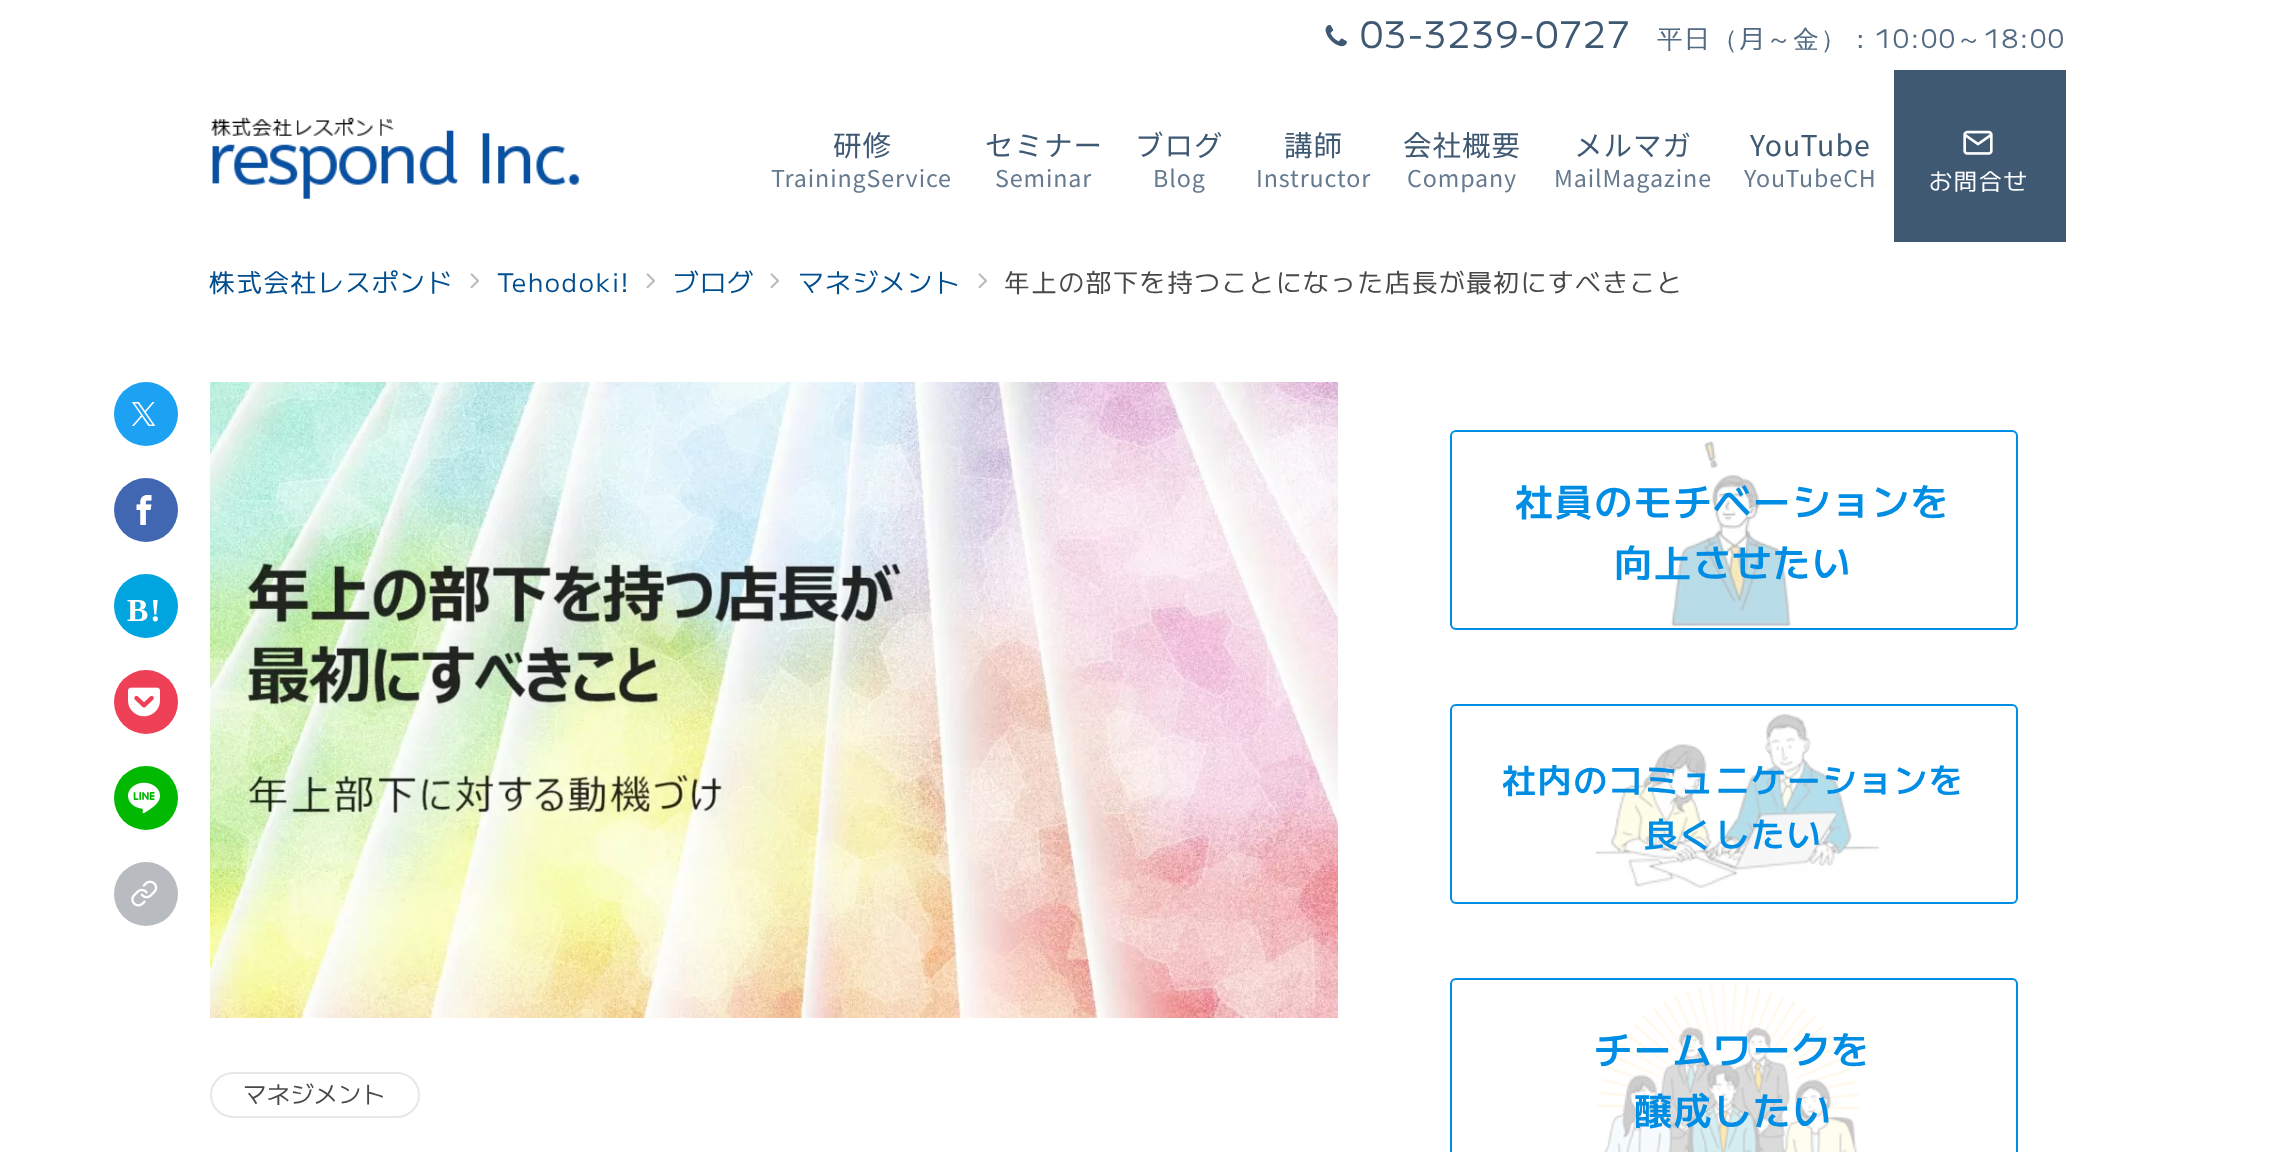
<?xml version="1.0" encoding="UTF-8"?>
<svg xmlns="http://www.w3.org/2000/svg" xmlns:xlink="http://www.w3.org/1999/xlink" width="2274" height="1152">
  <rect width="100%" height="100%" fill="#ffffff" />
  <image x="1325" y="24" width="22" height="23" xlink:href="image1.png" />
  <image x="211" y="117" width="369" height="82" xlink:href="image2.png" />
  <rect x="1894" y="70" width="172" height="172" fill="#3f5973" />
  <image x="1963" y="130" width="30" height="25" xlink:href="image3.png" />
  <image x="470" y="273" width="9" height="16" xlink:href="image4.png" />
  <image x="646" y="273" width="9" height="16" xlink:href="image4.png" />
  <image x="770" y="273" width="9" height="16" xlink:href="image4.png" />
  <image x="978" y="273" width="9" height="16" xlink:href="image4.png" />
  <circle cx="146" cy="414" r="32" fill="#1da1f2" />
  <image x="132" y="402" width="24" height="24" xlink:href="image5.png" />
  <circle cx="146" cy="510" r="32" fill="#4267b2" />
  <image x="136" y="495" width="16" height="30" xlink:href="image6.png" />
  <circle cx="146" cy="606" r="32" fill="#00a4de" />
  <circle cx="146" cy="702" r="32" fill="#ee4056" />
  <image x="128" y="687" width="32" height="30" xlink:href="image7.png" />
  <circle cx="146" cy="798" r="32" fill="#00b900" />
  <image x="128" y="782" width="32" height="32" xlink:href="image8.png" />
  <circle cx="146" cy="894" r="32" fill="#b8bcc0" />
  <image x="131" y="880" width="27" height="27" xlink:href="image9.png" />
  <image x="210" y="382" width="1128" height="636" xlink:href="image10.png" />
  <rect x="211" y="1073" width="208" height="44" rx="22" fill="none" stroke="#e5e7e8" stroke-width="2" />
  <image x="1670" y="441" width="121" height="186" xlink:href="image11.png" />
  <rect x="1451" y="431" width="566" height="198" rx="5" fill="none" stroke="#008de4" stroke-width="2" />
  <image x="1595" y="713" width="285" height="189" xlink:href="image12.png" />
  <rect x="1451" y="705" width="566" height="198" rx="5" fill="none" stroke="#008de4" stroke-width="2" />
  <image x="1596" y="984" width="265" height="168" xlink:href="image13.png" />
  <rect x="1451" y="979" width="566" height="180" rx="5" fill="none" stroke="#008de4" stroke-width="2" />
  <text x="1360" y="48" style="font-family: 'M PLUS 1'; font-size: 36.5px; letter-spacing: 0.75px; fill: #3f5973">03-3239-0727</text>
  <text x="1657" y="48" style="font-family: WenQuanYi Zen Hei; font-size: 25.6px; font-weight: 500; letter-spacing: 1.6px; fill: #526a81">平</text>
  <text x="1684" y="48" style="font-family: 'M PLUS 1'; font-size: 25.6px; letter-spacing: 1.6px; fill: #526a81">日</text>
  <text x="1712" y="48" style="font-family: WenQuanYi Zen Hei; font-size: 25.6px; font-weight: 500; letter-spacing: 1.6px; fill: #526a81">（</text>
  <text x="1739" y="48" style="font-family: 'M PLUS 1'; font-size: 25.6px; letter-spacing: 1.6px; fill: #526a81">月</text>
  <text x="1766" y="48" style="font-family: WenQuanYi Zen Hei; font-size: 25.6px; font-weight: 500; letter-spacing: 1.6px; fill: #526a81">～金）：</text>
  <text x="1875" y="48" style="font-family: 'M PLUS 1'; font-size: 25.6px; letter-spacing: 1.6px; fill: #526a81">10:00</text>
  <text x="1956" y="48" style="font-family: WenQuanYi Zen Hei; font-size: 25.6px; font-weight: 500; letter-spacing: 1.6px; fill: #526a81">～</text>
  <text x="1984" y="48" style="font-family: 'M PLUS 1'; font-size: 25.6px; letter-spacing: 1.6px; fill: #526a81">18:00</text>
  <text x="833" y="156" style="font-family: Noto Sans JP; font-size: 28.5px; letter-spacing: 1px; fill: #3f5973">研修</text>
  <text x="771" y="187" style="font-family: Noto Sans JP; font-size: 23.25px; letter-spacing: 0.9px; fill: #657a8f">TrainingService</text>
  <text x="985" y="156" style="font-family: Noto Sans JP; font-size: 28.5px; letter-spacing: 1px; fill: #3f5973">セミナー</text>
  <text x="995" y="187" style="font-family: Noto Sans JP; font-size: 23.25px; letter-spacing: 0.9px; fill: #657a8f">Seminar</text>
  <text x="1135" y="156" style="font-family: Noto Sans JP; font-size: 28.5px; letter-spacing: 1px; fill: #3f5973">ブログ</text>
  <text x="1153" y="187" style="font-family: Noto Sans JP; font-size: 23.25px; letter-spacing: 0.9px; fill: #657a8f">Blog</text>
  <text x="1284" y="156" style="font-family: Noto Sans JP; font-size: 28.5px; letter-spacing: 1px; fill: #3f5973">講師</text>
  <text x="1256" y="187" style="font-family: Noto Sans JP; font-size: 23.25px; letter-spacing: 0.9px; fill: #657a8f">Instructor</text>
  <text x="1403" y="156" style="font-family: Noto Sans JP; font-size: 28.5px; letter-spacing: 1px; fill: #3f5973">会社概要</text>
  <text x="1407" y="187" style="font-family: Noto Sans JP; font-size: 23.25px; letter-spacing: 0.9px; fill: #657a8f">Company</text>
  <text x="1574" y="156" style="font-family: Noto Sans JP; font-size: 28.5px; letter-spacing: 1px; fill: #3f5973">メルマガ</text>
  <text x="1554" y="187" style="font-family: Noto Sans JP; font-size: 23.25px; letter-spacing: 0.9px; fill: #657a8f">MailMagazine</text>
  <text x="1750" y="156" style="font-family: Noto Sans JP; font-size: 28.5px; letter-spacing: 1px; fill: #3f5973">YouTube</text>
  <text x="1744" y="187" style="font-family: Noto Sans JP; font-size: 23.25px; letter-spacing: 0.9px; fill: #657a8f">YouTubeCH</text>
  <text x="1929" y="190" style="font-family: 'M PLUS 1'; font-size: 23.25px; letter-spacing: 1.6px; fill: #ffffff">お問合せ</text>
  <text x="209" y="292" style="font-family: 'M PLUS 1'; font-size: 25.6px; letter-spacing: 1.6px; fill: #004e8e">株式会社レスポンド</text>
  <text x="497" y="292" style="font-family: 'M PLUS 1'; font-size: 25.6px; letter-spacing: 1.6px; fill: #004e8e">Tehodoki!</text>
  <text x="673" y="292" style="font-family: 'M PLUS 1'; font-size: 25.6px; letter-spacing: 1.6px; fill: #004e8e">ブログ</text>
  <text x="798" y="292" style="font-family: 'M PLUS 1'; font-size: 25.6px; letter-spacing: 1.6px; fill: #004e8e">マネジメント</text>
  <text x="1004" y="292" style="font-family: 'M PLUS 1'; font-size: 25.6px; letter-spacing: 1.6px; fill: #484848">年上の部下を持つことになった店長が最初にすべきこと</text>
  <text x="127" y="621" style="font-family: Liberation Serif; font-size: 32px; font-weight: bold; letter-spacing: 1.6px; fill: #ffffff">B!</text>
  <text x="243" y="1103" style="font-family: 'M PLUS 1'; font-size: 23.25px; letter-spacing: 0.5px; fill: #484848">マネジメント</text>
  <text x="1515" y="516" style="font-family: 'M PLUS 1'; font-size: 38px; font-weight: 600; letter-spacing: 1.6px; fill: #008de4">社員のモチベーションを</text>
  <text x="1614" y="577" style="font-family: 'M PLUS 1'; font-size: 38px; font-weight: 600; letter-spacing: 1.6px; fill: #008de4">向上させたい</text>
  <text x="1502" y="793" style="font-family: 'M PLUS 1'; font-size: 34px; font-weight: 600; letter-spacing: 1.6px; fill: #008de4">社内のコミュニケーションを</text>
  <text x="1644" y="847" style="font-family: 'M PLUS 1'; font-size: 34px; font-weight: 600; letter-spacing: 1.6px; fill: #008de4">良くしたい</text>
  <text x="1594" y="1064" style="font-family: 'M PLUS 1'; font-size: 38px; font-weight: 600; letter-spacing: 1.6px; fill: #008de4">チームワークを</text>
  <text x="1634" y="1125" style="font-family: 'M PLUS 1'; font-size: 38px; font-weight: 600; letter-spacing: 1.6px; fill: #008de4">醸成したい</text>
</svg>
